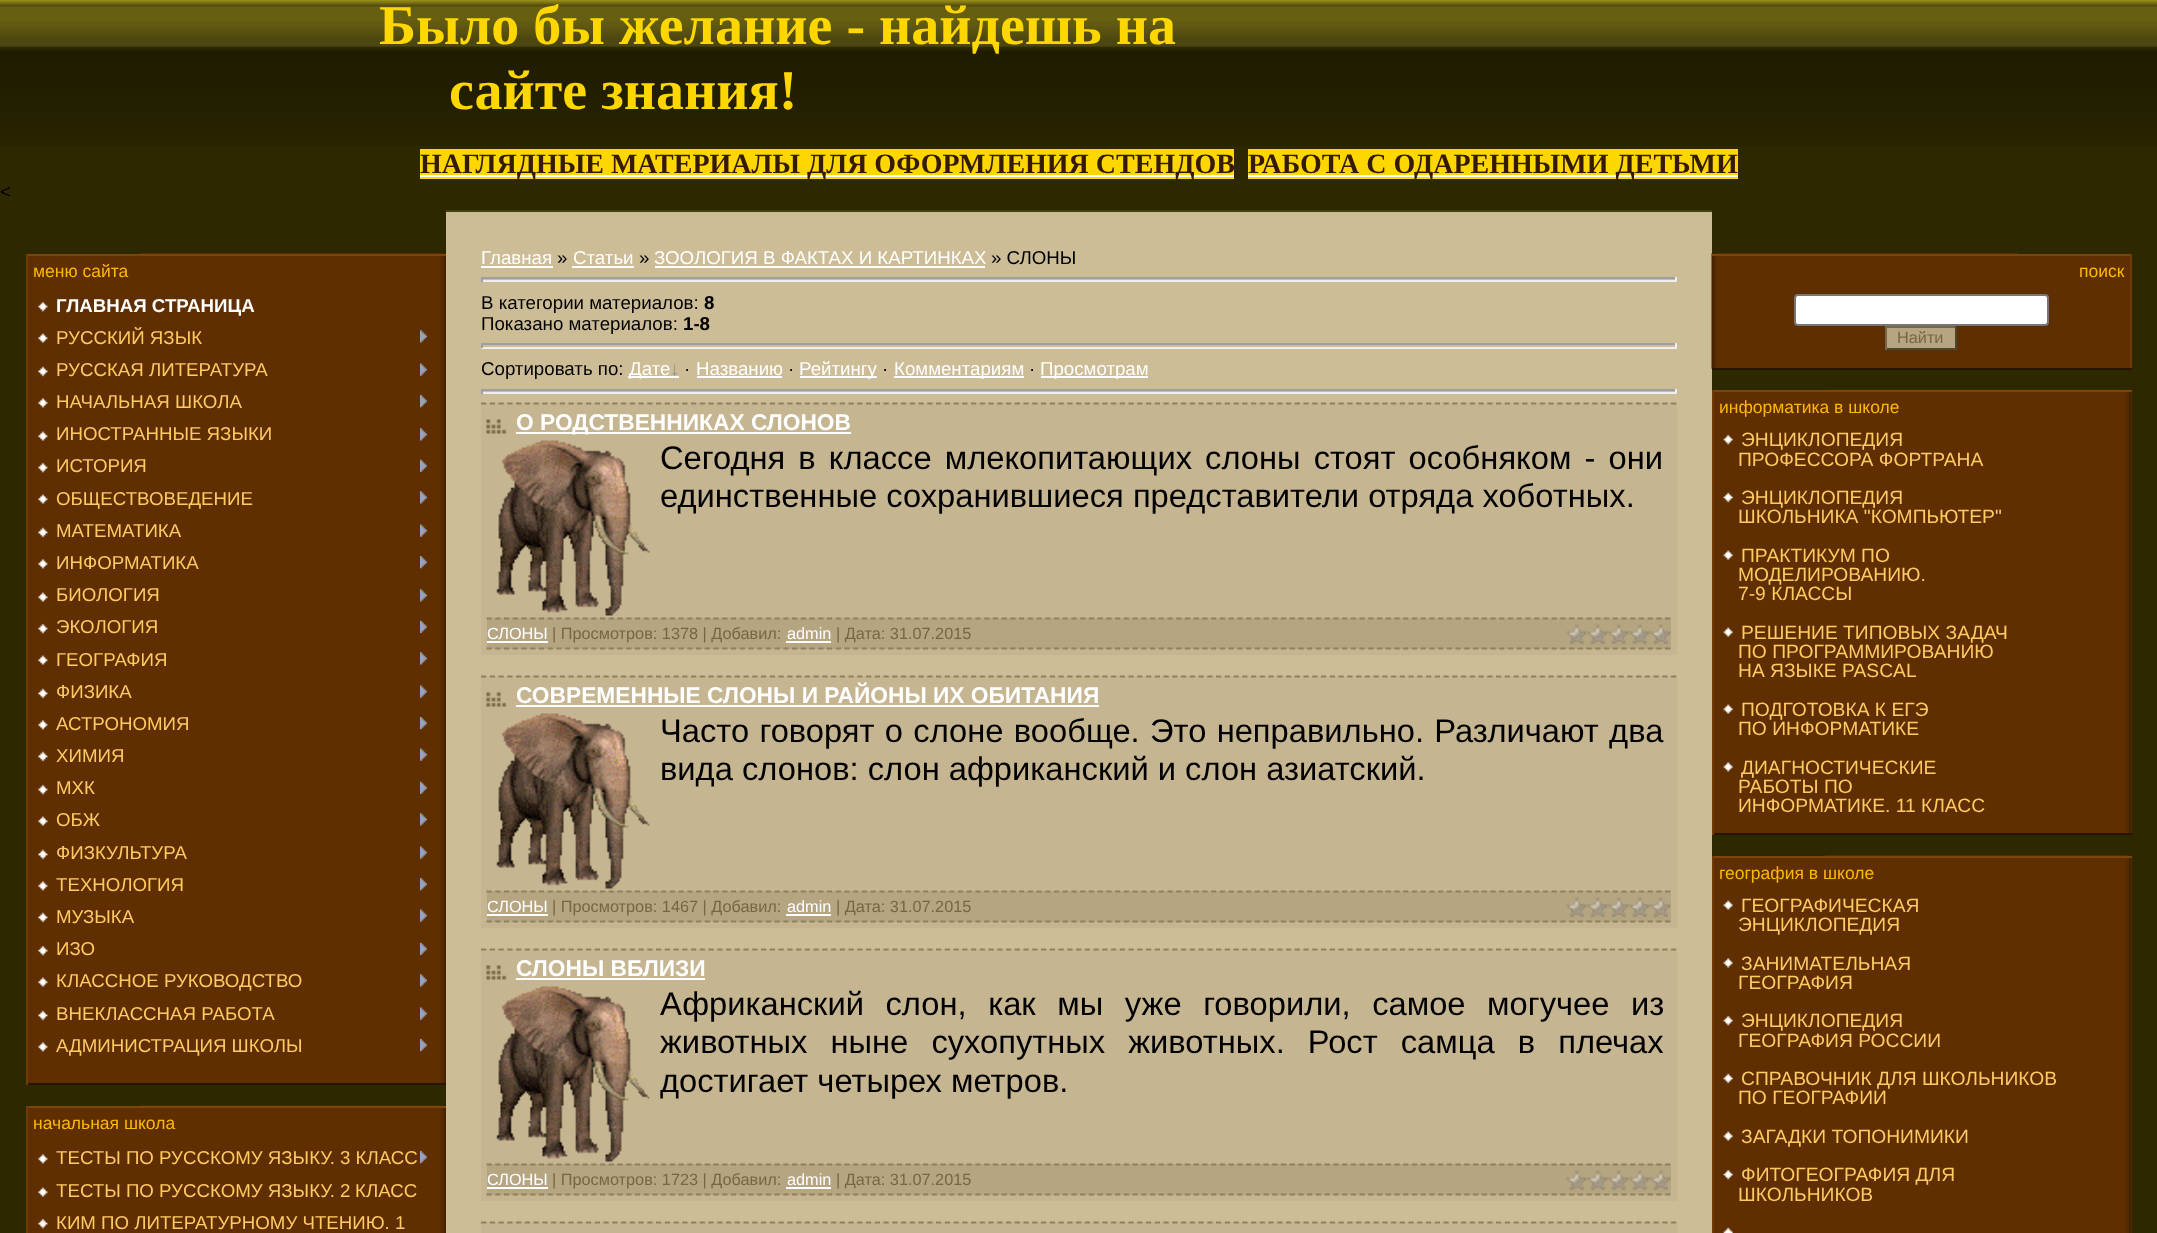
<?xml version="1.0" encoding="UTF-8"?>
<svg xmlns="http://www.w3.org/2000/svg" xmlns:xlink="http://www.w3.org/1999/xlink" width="2157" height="1233">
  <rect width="100%" height="100%" fill="#2d2800" />
  <image x="0" y="0" width="2157" height="146" xlink:href="image1.png" />
  <rect x="420" y="149" width="814" height="30" fill="#ffd700" />
  <rect x="420" y="175" width="814" height="2" fill="#ffffff" />
  <rect x="1248" y="149" width="490" height="30" fill="#ffd700" />
  <rect x="1248" y="175" width="490" height="2" fill="#ffffff" />
  <rect x="28" y="256" width="112" height="827" fill="#602f01" />
  <image x="140" y="253" width="306" height="830" xlink:href="image2.png" />
  <rect x="26" y="254" width="420" height="2" fill="#7e4508" />
  <rect x="26" y="1083" width="420" height="2" fill="#281400" />
  <rect x="26" y="254" width="2" height="831" fill="#6f3a05" />
  <image x="38" y="301" width="10" height="11" xlink:href="image3.png" />
  <image x="38" y="333" width="10" height="10" xlink:href="image4.png" />
  <image x="420" y="330" width="7" height="13" xlink:href="image5.png" />
  <image x="38" y="366" width="10" height="11" xlink:href="image6.png" />
  <image x="420" y="363" width="7" height="13" xlink:href="image7.png" />
  <image x="38" y="398" width="10" height="10" xlink:href="image8.png" />
  <image x="420" y="395" width="7" height="13" xlink:href="image9.png" />
  <image x="38" y="431" width="10" height="10" xlink:href="image4.png" />
  <image x="420" y="428" width="7" height="13" xlink:href="image5.png" />
  <image x="38" y="462" width="10" height="11" xlink:href="image3.png" />
  <image x="420" y="459" width="7" height="13" xlink:href="image10.png" />
  <image x="38" y="494" width="10" height="10" xlink:href="image4.png" />
  <image x="420" y="491" width="7" height="13" xlink:href="image5.png" />
  <image x="38" y="527" width="10" height="11" xlink:href="image6.png" />
  <image x="420" y="524" width="7" height="13" xlink:href="image7.png" />
  <image x="38" y="559" width="10" height="10" xlink:href="image8.png" />
  <image x="420" y="556" width="7" height="13" xlink:href="image9.png" />
  <image x="38" y="592" width="10" height="10" xlink:href="image4.png" />
  <image x="420" y="589" width="7" height="13" xlink:href="image5.png" />
  <image x="38" y="623" width="10" height="11" xlink:href="image3.png" />
  <image x="420" y="620" width="7" height="13" xlink:href="image10.png" />
  <image x="38" y="655" width="10" height="10" xlink:href="image4.png" />
  <image x="420" y="652" width="7" height="13" xlink:href="image5.png" />
  <image x="38" y="688" width="10" height="11" xlink:href="image6.png" />
  <image x="420" y="685" width="7" height="13" xlink:href="image7.png" />
  <image x="38" y="720" width="10" height="10" xlink:href="image8.png" />
  <image x="420" y="717" width="7" height="13" xlink:href="image9.png" />
  <image x="38" y="751" width="10" height="11" xlink:href="image6.png" />
  <image x="420" y="748" width="7" height="13" xlink:href="image7.png" />
  <image x="38" y="784" width="10" height="11" xlink:href="image3.png" />
  <image x="420" y="781" width="7" height="13" xlink:href="image10.png" />
  <image x="38" y="816" width="10" height="10" xlink:href="image4.png" />
  <image x="420" y="813" width="7" height="13" xlink:href="image5.png" />
  <image x="38" y="849" width="10" height="11" xlink:href="image6.png" />
  <image x="420" y="846" width="7" height="13" xlink:href="image7.png" />
  <image x="38" y="881" width="10" height="10" xlink:href="image8.png" />
  <image x="420" y="878" width="7" height="13" xlink:href="image9.png" />
  <image x="38" y="912" width="10" height="11" xlink:href="image6.png" />
  <image x="420" y="909" width="7" height="13" xlink:href="image7.png" />
  <image x="38" y="945" width="10" height="11" xlink:href="image3.png" />
  <image x="420" y="942" width="7" height="13" xlink:href="image10.png" />
  <image x="38" y="977" width="10" height="10" xlink:href="image4.png" />
  <image x="420" y="974" width="7" height="13" xlink:href="image5.png" />
  <image x="38" y="1010" width="10" height="11" xlink:href="image6.png" />
  <image x="420" y="1007" width="7" height="13" xlink:href="image7.png" />
  <image x="38" y="1042" width="10" height="10" xlink:href="image8.png" />
  <image x="420" y="1039" width="7" height="13" xlink:href="image9.png" />
  <rect x="28" y="1108" width="112" height="125" fill="#602f01" />
  <image x="140" y="1105" width="306" height="128" xlink:href="image11.png" />
  <rect x="26" y="1106" width="420" height="2" fill="#7e4508" />
  <rect x="26" y="1106" width="2" height="127" fill="#6f3a05" />
  <image x="38" y="1154" width="10" height="10" xlink:href="image8.png" />
  <image x="420" y="1151" width="7" height="13" xlink:href="image9.png" />
  <image x="38" y="1187" width="10" height="10" xlink:href="image4.png" />
  <image x="38" y="1218" width="10" height="11" xlink:href="image3.png" />
  <rect x="446" y="212" width="1266" height="1021" fill="#cdbd97" />
  <rect x="446" y="210" width="1266" height="2" fill="#443f0c" />
  <rect x="481" y="266" width="72" height="2" fill="#ffffff" />
  <rect x="572" y="266" width="62" height="2" fill="#ffffff" />
  <rect x="655" y="266" width="330" height="2" fill="#ffffff" />
  <rect x="481" y="277" width="1196" height="2" fill="#9f9f9f" />
  <rect x="1675" y="277" width="2" height="5" fill="#eeeeee" />
  <rect x="481" y="280" width="1196" height="2" fill="#eeeeee" />
  <rect x="481" y="277" width="2" height="5" fill="#9f9f9f" />
  <rect x="481" y="343" width="1196" height="2" fill="#9f9f9f" />
  <rect x="1675" y="343" width="2" height="5" fill="#eeeeee" />
  <rect x="481" y="347" width="1196" height="2" fill="#eeeeee" />
  <rect x="481" y="343" width="2" height="5" fill="#9f9f9f" />
  <rect x="628" y="376" width="51" height="2" fill="#ffffff" />
  <rect x="697" y="376" width="85" height="2" fill="#ffffff" />
  <rect x="800" y="376" width="77" height="2" fill="#ffffff" />
  <rect x="894" y="376" width="130" height="2" fill="#ffffff" />
  <rect x="1041" y="376" width="107" height="2" fill="#ffffff" />
  <rect x="481" y="389" width="1196" height="2" fill="#9f9f9f" />
  <rect x="1675" y="389" width="2" height="5" fill="#eeeeee" />
  <rect x="481" y="392" width="1196" height="2" fill="#eeeeee" />
  <rect x="481" y="389" width="2" height="5" fill="#9f9f9f" />
  <rect x="481" y="403" width="1196" height="252" fill="#c6b591" />
  <path d="M 481 403.5 h 1195.5" fill="none" stroke="#90805e" stroke-width="1.8" stroke-dasharray="5.25 3.5" />
  <image x="486" y="419" width="21" height="15" xlink:href="image12.png" />
  <rect x="516" y="432" width="335" height="2" fill="#ffffff" />
  <image x="496" y="440" width="154" height="176" xlink:href="image13.png" />
  <rect x="487" y="618" width="1184" height="31" fill="#b6a581" />
  <path d="M 486.5 618.5 h 1184.5" fill="none" stroke="#90805e" stroke-width="1.8" stroke-dasharray="5.25 3.48" />
  <path d="M 486.5 648.5 h 1184.5" fill="none" stroke="#90805e" stroke-width="1.8" stroke-dasharray="5.25 3.48" />
  <rect x="487" y="641" width="61" height="2" fill="#ffffff" />
  <rect x="786" y="641" width="45" height="2" fill="#ffffff" />
  <image x="1566" y="624" width="105" height="22" xlink:href="image14.png" />
  <rect x="481" y="676" width="1196" height="252" fill="#c6b591" />
  <path d="M 481 676.5 h 1195.5" fill="none" stroke="#90805e" stroke-width="1.8" stroke-dasharray="5.25 3.5" />
  <image x="486" y="692" width="21" height="15" xlink:href="image12.png" />
  <rect x="516" y="705" width="583" height="2" fill="#ffffff" />
  <image x="496" y="713" width="154" height="176" xlink:href="image13.png" />
  <rect x="487" y="891" width="1184" height="31" fill="#b6a581" />
  <path d="M 486.5 891.5 h 1184.5" fill="none" stroke="#90805e" stroke-width="1.8" stroke-dasharray="5.25 3.48" />
  <path d="M 486.5 921.5 h 1184.5" fill="none" stroke="#90805e" stroke-width="1.8" stroke-dasharray="5.25 3.48" />
  <rect x="487" y="914" width="61" height="2" fill="#ffffff" />
  <rect x="786" y="914" width="45" height="2" fill="#ffffff" />
  <image x="1566" y="897" width="105" height="22" xlink:href="image15.png" />
  <rect x="481" y="949" width="1196" height="252" fill="#c6b591" />
  <path d="M 481 949.5 h 1195.5" fill="none" stroke="#90805e" stroke-width="1.8" stroke-dasharray="5.25 3.5" />
  <image x="486" y="965" width="21" height="15" xlink:href="image12.png" />
  <rect x="516" y="978" width="189" height="2" fill="#ffffff" />
  <image x="496" y="986" width="154" height="176" xlink:href="image13.png" />
  <rect x="487" y="1164" width="1184" height="31" fill="#b6a581" />
  <path d="M 486.5 1164.5 h 1184.5" fill="none" stroke="#90805e" stroke-width="1.8" stroke-dasharray="5.25 3.48" />
  <path d="M 486.5 1194.5 h 1184.5" fill="none" stroke="#90805e" stroke-width="1.8" stroke-dasharray="5.25 3.48" />
  <rect x="487" y="1187" width="61" height="2" fill="#ffffff" />
  <rect x="786" y="1187" width="45" height="2" fill="#ffffff" />
  <image x="1566" y="1170" width="105" height="22" xlink:href="image14.png" />
  <rect x="481" y="1222" width="1196" height="11" fill="#c6b591" />
  <path d="M 481 1222.5 h 1195.5" fill="none" stroke="#90805e" stroke-width="1.8" stroke-dasharray="5.25 3.5" />
  <rect x="2017" y="256" width="113" height="112" fill="#602f01" />
  <image x="1711" y="253" width="307" height="116" xlink:href="image16.png" />
  <rect x="1712" y="254" width="420" height="2" fill="#7e4508" />
  <rect x="2130" y="254" width="2" height="115" fill="#6f3a05" />
  <rect x="1712" y="368" width="420" height="2" fill="#281400" />
  <rect x="1795" y="295" width="253" height="30" rx="3" fill="#ffffff" stroke="#767676" stroke-width="2" />
  <rect x="1887" y="328" width="68" height="20" fill="#b6a581" />
  <rect x="1885" y="326" width="72" height="2" fill="#756746" />
  <rect x="1955" y="326" width="2" height="24" fill="#4e452f" />
  <rect x="1885" y="348" width="72" height="2" fill="#4e452f" />
  <rect x="1885" y="326" width="2" height="24" fill="#756746" />
  <rect x="1714" y="392" width="418" height="441" fill="#602f01" />
  <image x="1825" y="389" width="307" height="444" xlink:href="image17.png" />
  <rect x="1712" y="390" width="420" height="2" fill="#7e4508" />
  <rect x="1712" y="833" width="420" height="2" fill="#281400" />
  <rect x="1712" y="390" width="2" height="445" fill="#6f3a05" />
  <image x="1723" y="434" width="10" height="11" xlink:href="image18.png" />
  <image x="1723" y="492" width="10" height="11" xlink:href="image19.png" />
  <image x="1723" y="550" width="10" height="10" xlink:href="image20.png" />
  <image x="1723" y="627" width="10" height="10" xlink:href="image20.png" />
  <image x="1723" y="704" width="10" height="10" xlink:href="image20.png" />
  <image x="1723" y="762" width="10" height="10" xlink:href="image21.png" />
  <rect x="1714" y="858" width="418" height="375" fill="#602f01" />
  <image x="1825" y="855" width="307" height="378" xlink:href="image22.png" />
  <rect x="1712" y="856" width="420" height="2" fill="#7e4508" />
  <rect x="1712" y="856" width="2" height="377" fill="#6f3a05" />
  <image x="1723" y="900" width="10" height="10" xlink:href="image20.png" />
  <image x="1723" y="958" width="10" height="10" xlink:href="image21.png" />
  <image x="1723" y="1015" width="10" height="11" xlink:href="image18.png" />
  <image x="1723" y="1073" width="10" height="11" xlink:href="image19.png" />
  <image x="1723" y="1131" width="10" height="10" xlink:href="image20.png" />
  <image x="1723" y="1169" width="10" height="11" xlink:href="image18.png" />
  <image x="1723" y="1227" width="10" height="6" xlink:href="image23.png" />
  <text x="379" y="44" style="font-family: Liberation Serif; font-size: 56px; font-weight: bold; fill: #ffd700">Было бы желание - найдешь на</text>
  <text x="449" y="109" style="font-family: Liberation Serif; font-size: 56px; font-weight: bold; fill: #ffd700">сайте знания!</text>
  <text x="420" y="173" style="font-family: Liberation Serif; font-size: 28px; font-weight: bold; fill: #341a00">НАГЛЯДНЫЕ МАТЕРИАЛЫ ДЛЯ ОФОРМЛЕНИЯ СТЕНДОВ</text>
  <text x="1248" y="173" style="font-family: Liberation Serif; font-size: 28px; font-weight: bold; fill: #341a00">РАБОТА С ОДАРЕННЫМИ ДЕТЬМИ</text>
  <text x="0" y="198" style="font-family: Liberation Sans; font-size: 18.7px; fill: #000000">&lt;</text>
  <text x="33" y="277" style="font-family: Liberation Sans; font-size: 17.5px; fill: #ffb802">меню сайта</text>
  <text x="56" y="312" style="font-family: Liberation Sans; font-size: 18.7px; font-weight: bold; fill: #ffffff">ГЛАВНАЯ СТРАНИЦА</text>
  <text x="56" y="344" style="font-family: Liberation Sans; font-size: 18.7px; fill: #ffc963">РУССКИЙ ЯЗЫК</text>
  <text x="56" y="376" style="font-family: Liberation Sans; font-size: 18.7px; fill: #ffc963">РУССКАЯ ЛИТЕРАТУРА</text>
  <text x="56" y="408" style="font-family: Liberation Sans; font-size: 18.7px; fill: #ffc963">НАЧАЛЬНАЯ ШКОЛА</text>
  <text x="56" y="440" style="font-family: Liberation Sans; font-size: 18.7px; fill: #ffc963">ИНОСТРАННЫЕ ЯЗЫКИ</text>
  <text x="56" y="472" style="font-family: Liberation Sans; font-size: 18.7px; fill: #ffc963">ИСТОРИЯ</text>
  <text x="56" y="505" style="font-family: Liberation Sans; font-size: 18.7px; fill: #ffc963">ОБЩЕСТВОВЕДЕНИЕ</text>
  <text x="56" y="537" style="font-family: Liberation Sans; font-size: 18.7px; fill: #ffc963">МАТЕМАТИКА</text>
  <text x="56" y="569" style="font-family: Liberation Sans; font-size: 18.7px; fill: #ffc963">ИНФОРМАТИКА</text>
  <text x="56" y="601" style="font-family: Liberation Sans; font-size: 18.7px; fill: #ffc963">БИОЛОГИЯ</text>
  <text x="56" y="633" style="font-family: Liberation Sans; font-size: 18.7px; fill: #ffc963">ЭКОЛОГИЯ</text>
  <text x="56" y="666" style="font-family: Liberation Sans; font-size: 18.7px; fill: #ffc963">ГЕОГРАФИЯ</text>
  <text x="56" y="698" style="font-family: Liberation Sans; font-size: 18.7px; fill: #ffc963">ФИЗИКА</text>
  <text x="56" y="730" style="font-family: Liberation Sans; font-size: 18.7px; fill: #ffc963">АСТРОНОМИЯ</text>
  <text x="56" y="762" style="font-family: Liberation Sans; font-size: 18.7px; fill: #ffc963">ХИМИЯ</text>
  <text x="56" y="794" style="font-family: Liberation Sans; font-size: 18.7px; fill: #ffc963">МХК</text>
  <text x="56" y="826" style="font-family: Liberation Sans; font-size: 18.7px; fill: #ffc963">ОБЖ</text>
  <text x="56" y="859" style="font-family: Liberation Sans; font-size: 18.7px; fill: #ffc963">ФИЗКУЛЬТУРА</text>
  <text x="56" y="891" style="font-family: Liberation Sans; font-size: 18.7px; fill: #ffc963">ТЕХНОЛОГИЯ</text>
  <text x="56" y="923" style="font-family: Liberation Sans; font-size: 18.7px; fill: #ffc963">МУЗЫКА</text>
  <text x="56" y="955" style="font-family: Liberation Sans; font-size: 18.7px; fill: #ffc963">ИЗО</text>
  <text x="56" y="987" style="font-family: Liberation Sans; font-size: 18.7px; fill: #ffc963">КЛАССНОЕ РУКОВОДСТВО</text>
  <text x="56" y="1020" style="font-family: Liberation Sans; font-size: 18.7px; fill: #ffc963">ВНЕКЛАССНАЯ РАБОТА</text>
  <text x="56" y="1052" style="font-family: Liberation Sans; font-size: 18.7px; fill: #ffc963">АДМИНИСТРАЦИЯ ШКОЛЫ</text>
  <text x="33" y="1129" style="font-family: Liberation Sans; font-size: 17.5px; fill: #ffb802">начальная школа</text>
  <text x="56" y="1164" style="font-family: Liberation Sans; font-size: 18.7px; fill: #ffc963">ТЕСТЫ ПО РУССКОМУ ЯЗЫКУ. 3 КЛАСС</text>
  <text x="56" y="1197" style="font-family: Liberation Sans; font-size: 18.7px; fill: #ffc963">ТЕСТЫ ПО РУССКОМУ ЯЗЫКУ. 2</text>
  <text x="355" y="1197" style="font-family: Liberation Sans; font-size: 18.7px; fill: #ffc963">КЛАСС</text>
  <text x="56" y="1229" style="font-family: Liberation Sans; font-size: 18.7px; fill: #ffc963">КИМ ПО ЛИТЕРАТУРНОМУ ЧТЕНИЮ. 1</text>
  <text x="481" y="264" style="font-family: Liberation Sans; font-size: 18.7px; fill: #ffffff">Главная</text>
  <text x="557" y="264" style="font-family: Liberation Sans; font-size: 18.7px; fill: #000000">»</text>
  <text x="573" y="264" style="font-family: Liberation Sans; font-size: 18.7px; fill: #ffffff">Статьи</text>
  <text x="639" y="264" style="font-family: Liberation Sans; font-size: 18.7px; fill: #000000">»</text>
  <text x="654" y="264" style="font-family: Liberation Sans; font-size: 18.7px; fill: #ffffff">ЗООЛОГИЯ В ФАКТАХ И КАРТИНКАХ</text>
  <text x="991" y="264" style="font-family: Liberation Sans; font-size: 18.7px; fill: #000000">» СЛОНЫ</text>
  <text x="481" y="309" style="font-family: Liberation Sans; font-size: 18.7px; fill: #000000">В категории материалов:</text>
  <text x="704" y="309" style="font-family: Liberation Sans; font-size: 18.7px; font-weight: bold; fill: #000000">8</text>
  <text x="481" y="330" style="font-family: Liberation Sans; font-size: 18.7px; fill: #000000">Показано материалов:</text>
  <text x="683" y="330" style="font-family: Liberation Sans; font-size: 18.7px; font-weight: bold; fill: #000000">1-8</text>
  <text x="481" y="375" style="font-family: Liberation Sans; font-size: 18.7px; fill: #000000">Сортировать по:</text>
  <text x="629" y="375" style="font-family: Liberation Sans; font-size: 18.7px; fill: #ffffff">Дате</text>
  <text x="670" y="375" style="font-family: Liberation Sans; font-size: 18.7px; fill: #938f86">↓</text>
  <text x="684" y="375" style="font-family: Liberation Sans; font-size: 18.7px; fill: #000000">·</text>
  <text x="696" y="375" style="font-family: Liberation Sans; font-size: 18.7px; fill: #ffffff">Названию</text>
  <text x="788" y="375" style="font-family: Liberation Sans; font-size: 18.7px; fill: #000000">·</text>
  <text x="799" y="375" style="font-family: Liberation Sans; font-size: 18.7px; fill: #ffffff">Рейтингу</text>
  <text x="882" y="375" style="font-family: Liberation Sans; font-size: 18.7px; fill: #000000">·</text>
  <text x="894" y="375" style="font-family: Liberation Sans; font-size: 18.7px; fill: #ffffff">Комментариям</text>
  <text x="1029" y="375" style="font-family: Liberation Sans; font-size: 18.7px; fill: #000000">·</text>
  <text x="1040" y="375" style="font-family: Liberation Sans; font-size: 18.7px; fill: #ffffff">Просмотрам</text>
  <text x="516" y="430" style="font-family: Liberation Sans; font-size: 22.75px; font-weight: bold; fill: #ffffff">О РОДСТВЕННИКАХ СЛОНОВ</text>
  <text x="660" y="469" word-spacing="4" style="font-family: Liberation Sans; font-size: 32.7px; fill: #000000">Сегодня в классе млекопитающих слоны стоят особняком - они</text>
  <text x="660" y="507" style="font-family: Liberation Sans; font-size: 32.7px; fill: #000000">единственные сохранившиеся представители отряда хоботных.</text>
  <text x="487" y="639" style="font-family: Liberation Sans; font-size: 16.3px; fill: #ffffff">СЛОНЫ</text>
  <text x="552" y="639" style="font-family: Liberation Sans; font-size: 16.3px; fill: #756746">| Просмотров: 1378 | Добавил:</text>
  <text x="787" y="639" style="font-family: Liberation Sans; font-size: 16.3px; fill: #ffffff">admin</text>
  <text x="836" y="639" style="font-family: Liberation Sans; font-size: 16.3px; fill: #756746">| Дата: 31.07.2015</text>
  <text x="516" y="703" style="font-family: Liberation Sans; font-size: 22.75px; font-weight: bold; fill: #ffffff">СОВРЕМЕННЫЕ СЛОНЫ И РАЙОНЫ ИХ ОБИТАНИЯ</text>
  <text x="660" y="742" word-spacing="1.25" style="font-family: Liberation Sans; font-size: 32.7px; fill: #000000">Часто говорят о слоне вообще. Это неправильно. Различают два</text>
  <text x="660" y="780" style="font-family: Liberation Sans; font-size: 32.7px; fill: #000000">вида слонов: слон африканский и слон азиатский.</text>
  <text x="487" y="912" style="font-family: Liberation Sans; font-size: 16.3px; fill: #ffffff">СЛОНЫ</text>
  <text x="552" y="912" style="font-family: Liberation Sans; font-size: 16.3px; fill: #756746">| Просмотров: 1467 | Добавил:</text>
  <text x="787" y="912" style="font-family: Liberation Sans; font-size: 16.3px; fill: #ffffff">admin</text>
  <text x="836" y="912" style="font-family: Liberation Sans; font-size: 16.3px; fill: #756746">| Дата: 31.07.2015</text>
  <text x="516" y="976" style="font-family: Liberation Sans; font-size: 22.75px; font-weight: bold; fill: #ffffff">СЛОНЫ ВБЛИЗИ</text>
  <text x="660" y="1015" word-spacing="12.5" style="font-family: Liberation Sans; font-size: 32.7px; fill: #000000">Африканский слон, как мы уже говорили, самое могучее из</text>
  <text x="660" y="1053" word-spacing="14" style="font-family: Liberation Sans; font-size: 32.7px; fill: #000000">животных ныне сухопутных животных. Рост самца в плечах</text>
  <text x="660" y="1092" style="font-family: Liberation Sans; font-size: 32.7px; fill: #000000">достигает четырех метров.</text>
  <text x="487" y="1185" style="font-family: Liberation Sans; font-size: 16.3px; fill: #ffffff">СЛОНЫ</text>
  <text x="552" y="1185" style="font-family: Liberation Sans; font-size: 16.3px; fill: #756746">| Просмотров: 1723 | Добавил:</text>
  <text x="787" y="1185" style="font-family: Liberation Sans; font-size: 16.3px; fill: #ffffff">admin</text>
  <text x="836" y="1185" style="font-family: Liberation Sans; font-size: 16.3px; fill: #756746">| Дата: 31.07.2015</text>
  <text x="2079" y="277" style="font-family: Liberation Sans; font-size: 17.5px; fill: #ffb802">поиск</text>
  <text x="1897" y="343" style="font-family: Liberation Sans; font-size: 16.3px; fill: #756746">Найти</text>
  <text x="1719" y="413" style="font-family: Liberation Sans; font-size: 17.5px; fill: #ffb802">информатика в школе</text>
  <text x="1741" y="446" style="font-family: Liberation Sans; font-size: 19.25px; fill: #ffc963">ЭНЦИКЛОПЕДИЯ</text>
  <text x="1738" y="466" style="font-family: Liberation Sans; font-size: 19.25px; fill: #ffc963">ПРОФЕССОРА ФОРТРАНА</text>
  <text x="1741" y="504" style="font-family: Liberation Sans; font-size: 19.25px; fill: #ffc963">ЭНЦИКЛОПЕДИЯ</text>
  <text x="1738" y="523" style="font-family: Liberation Sans; font-size: 19.25px; fill: #ffc963">ШКОЛЬНИКА "КОМПЬЮТЕР"</text>
  <text x="1741" y="562" style="font-family: Liberation Sans; font-size: 19.25px; fill: #ffc963">ПРАКТИКУМ ПО</text>
  <text x="1738" y="581" style="font-family: Liberation Sans; font-size: 19.25px; fill: #ffc963">МОДЕЛИРОВАНИЮ.</text>
  <text x="1738" y="600" style="font-family: Liberation Sans; font-size: 19.25px; fill: #ffc963">7-9 КЛАССЫ</text>
  <text x="1741" y="639" style="font-family: Liberation Sans; font-size: 19.25px; fill: #ffc963">РЕШЕНИЕ ТИПОВЫХ ЗАДАЧ</text>
  <text x="1738" y="658" style="font-family: Liberation Sans; font-size: 19.25px; fill: #ffc963">ПО ПРОГРАММИРОВАНИЮ</text>
  <text x="1738" y="677" style="font-family: Liberation Sans; font-size: 19.25px; fill: #ffc963">НА ЯЗЫКЕ PASCAL</text>
  <text x="1741" y="716" style="font-family: Liberation Sans; font-size: 19.25px; fill: #ffc963">ПОДГОТОВКА К ЕГЭ</text>
  <text x="1738" y="735" style="font-family: Liberation Sans; font-size: 19.25px; fill: #ffc963">ПО ИНФОРМАТИКЕ</text>
  <text x="1741" y="774" style="font-family: Liberation Sans; font-size: 19.25px; fill: #ffc963">ДИАГНОСТИЧЕСКИЕ</text>
  <text x="1738" y="793" style="font-family: Liberation Sans; font-size: 19.25px; fill: #ffc963">РАБОТЫ ПО</text>
  <text x="1738" y="812" style="font-family: Liberation Sans; font-size: 19.25px; fill: #ffc963">ИНФОРМАТИКЕ. 11 КЛАСС</text>
  <text x="1719" y="879" style="font-family: Liberation Sans; font-size: 17.5px; fill: #ffb802">география в школе</text>
  <text x="1741" y="912" style="font-family: Liberation Sans; font-size: 19.25px; fill: #ffc963">ГЕОГРАФИЧЕСКАЯ</text>
  <text x="1738" y="931" style="font-family: Liberation Sans; font-size: 19.25px; fill: #ffc963">ЭНЦИКЛОПЕДИЯ</text>
  <text x="1741" y="970" style="font-family: Liberation Sans; font-size: 19.25px; fill: #ffc963">ЗАНИМАТЕЛЬНАЯ</text>
  <text x="1738" y="989" style="font-family: Liberation Sans; font-size: 19.25px; fill: #ffc963">ГЕОГРАФИЯ</text>
  <text x="1741" y="1027" style="font-family: Liberation Sans; font-size: 19.25px; fill: #ffc963">ЭНЦИКЛОПЕДИЯ</text>
  <text x="1738" y="1047" style="font-family: Liberation Sans; font-size: 19.25px; fill: #ffc963">ГЕОГРАФИЯ РОССИИ</text>
  <text x="1741" y="1085" style="font-family: Liberation Sans; font-size: 19.25px; fill: #ffc963">СПРАВОЧНИК ДЛЯ ШКОЛЬНИКОВ</text>
  <text x="1738" y="1104" style="font-family: Liberation Sans; font-size: 19.25px; fill: #ffc963">ПО ГЕОГРАФИИ</text>
  <text x="1741" y="1143" style="font-family: Liberation Sans; font-size: 19.25px; fill: #ffc963">ЗАГАДКИ ТОПОНИМИКИ</text>
  <text x="1741" y="1181" style="font-family: Liberation Sans; font-size: 19.25px; fill: #ffc963">ФИТОГЕОГРАФИЯ ДЛЯ</text>
  <text x="1738" y="1201" style="font-family: Liberation Sans; font-size: 19.25px; fill: #ffc963">ШКОЛЬНИКОВ</text>
</svg>
